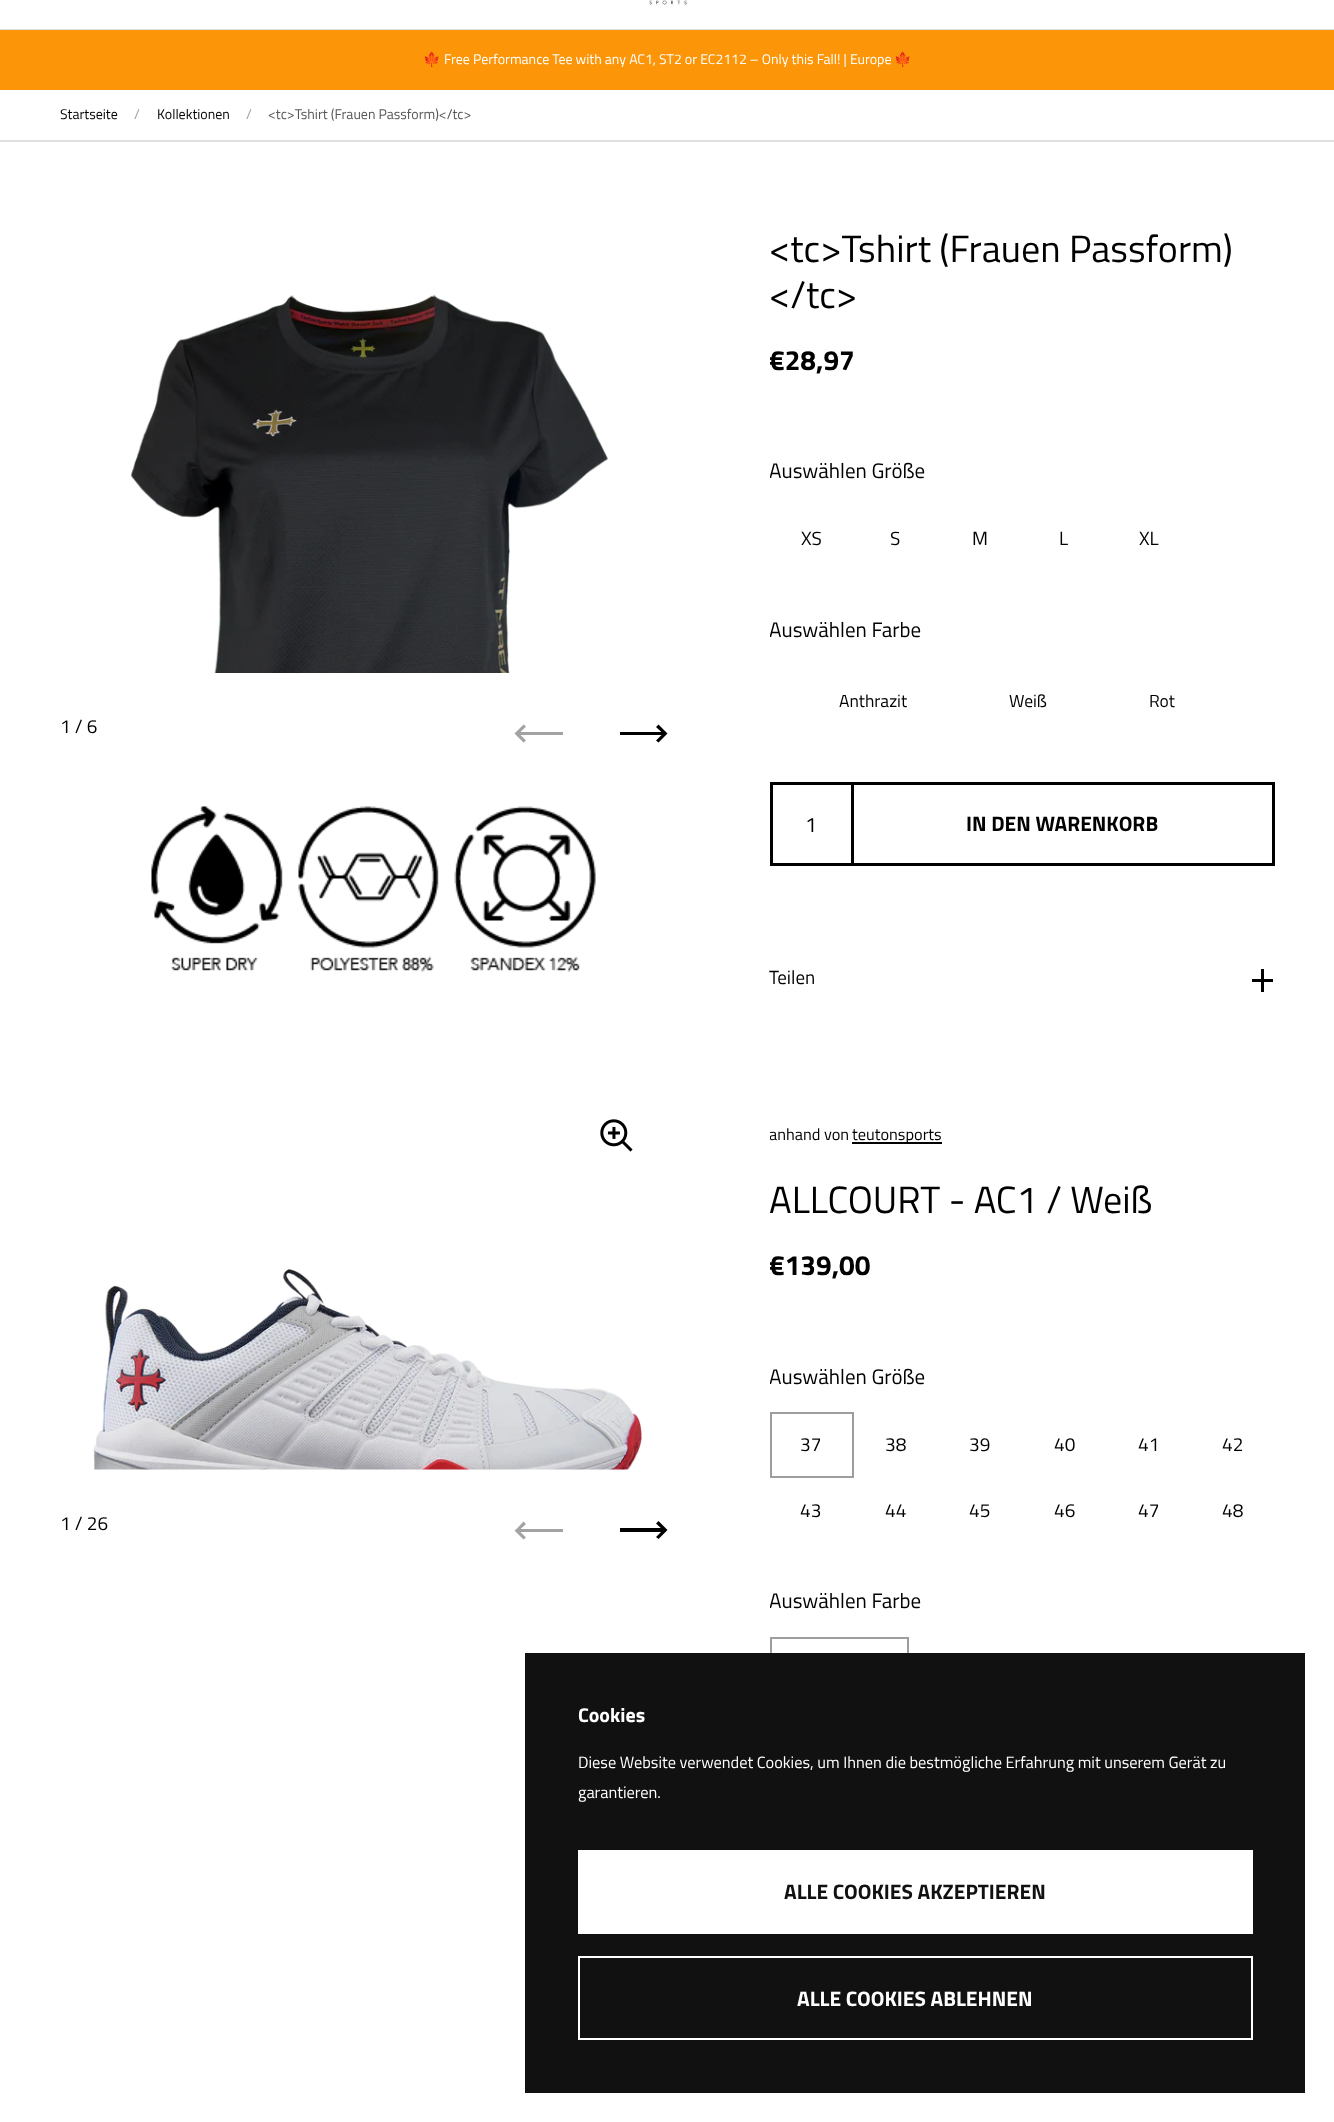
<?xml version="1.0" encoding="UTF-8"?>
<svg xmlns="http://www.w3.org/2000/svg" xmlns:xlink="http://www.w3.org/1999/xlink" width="1334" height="2122">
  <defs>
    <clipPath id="clip1"><rect x="770" y="176" width="505" height="883" /></clipPath>
    <clipPath id="clip2"><rect x="770" y="1127" width="505" height="918" /></clipPath>
  </defs>
  <rect width="100%" height="100%" fill="#ffffff" />
  <rect y="29" width="1334" height="1" fill="#e0e0e0" />
  <image x="649" y="0" width="38" height="5" xlink:href="image1.png" />
  <rect y="30" width="1334" height="60" fill="#fc9608" />
  <rect y="140" width="1334" height="2" fill="#e0e0e0" />
  <image x="130" y="294" width="478" height="379" xlink:href="image2.png" />
  <rect x="517" y="732" width="46" height="3" fill="#a3a3a3" />
  <path d="M 514.5 733.5 l 9 9 l 2.5 -2 l -7 -7 l 7 -7 l -2.5 -2 l -6.5 6.5 z" fill="#a3a3a3" />
  <rect x="620" y="732" width="45" height="3" fill="#000000" />
  <path d="M 667.5 733.5 l -9 -9 l -2.5 2.5 l 7 6.5 l -7 7 l 2.5 2 l 6.5 -6.5 z" fill="#000000" />
  <rect x="771.5" y="783.5" width="81" height="81" fill="none" stroke="#000000" stroke-width="3" />
  <rect x="852.5" y="783.5" width="421" height="81" fill="none" stroke="#000000" stroke-width="3" />
  <rect x="1252" y="979" width="21" height="3" fill="#000000" />
  <rect x="1261" y="969" width="3" height="23" fill="#000000" />
  <image x="151" y="806" width="445" height="166" xlink:href="image3.png" />
  <image x="600" y="1119" width="33" height="33" xlink:href="image4.png" />
  <image x="93" y="1269" width="549" height="201" xlink:href="image5.png" />
  <rect x="517" y="1529" width="46" height="3" fill="#a3a3a3" />
  <path d="M 514.5 1530.5 l 9 9 l 2.5 -2 l -7 -7 l 7 -6.5 l -2.5 -2.5 l -6.5 7 z" fill="#a3a3a3" />
  <rect x="620" y="1528" width="45" height="4" fill="#000000" />
  <path d="M 667.5 1530 l -9 -9 l -2.5 2.5 l 7 6.5 l -7 7 l 2.5 2 l 6.5 -6.5 z" fill="#000000" />
  <rect x="852" y="1142" width="90" height="2" fill="#000000" />
  <rect x="771" y="1413" width="82" height="64" fill="none" stroke="#9e9e9e" stroke-width="2" />
  <rect x="771" y="1638" width="137" height="73" fill="none" stroke="#9e9e9e" stroke-width="2" />
  <rect x="525" y="1653" width="780" height="440" fill="#111111" />
  <rect x="578" y="1850" width="675" height="84" fill="#ffffff" />
  <rect x="579" y="1957" width="673" height="82" fill="none" stroke="#ffffff" stroke-width="2" />
  <text x="423" y="64" style="font-family: Noto Color Emoji; font-size: 14px; fill: #ffffff">🍁</text>
  <text x="444" y="64" style="font-family: Titillium Web; font-size: 14px; fill: #ffffff">Free Performance Tee with any AC1, ST2 or EC2112 – Only this Fall! | Europe</text>
  <text x="894" y="64" style="font-family: Noto Color Emoji; font-size: 14px; fill: #ffffff">🍁</text>
  <text x="60" y="119" style="font-family: Titillium Web; font-size: 14px; fill: #000000">Startseite</text>
  <text x="134" y="119" style="font-family: Titillium Web; font-size: 14px; fill: #a3a3a3">/</text>
  <text x="157" y="119" style="font-family: Titillium Web; font-size: 14px; fill: #000000">Kollektionen</text>
  <text x="246" y="119" style="font-family: Titillium Web; font-size: 14px; fill: #a3a3a3">/</text>
  <text x="268" y="119" style="font-family: Titillium Web; font-size: 14px; fill: #575757">&lt;tc&gt;Tshirt (Frauen Passform)&lt;/tc&gt;</text>
  <text x="60" y="733" style="font-family: Titillium Web; font-size: 19px; fill: #000000">1 / 6</text>
  <text x="769" y="262" style="font-family: Titillium Web; font-size: 38px; fill: #000000">&lt;tc&gt;Tshirt (Frauen Passform)</text>
  <text x="769" y="308" style="font-family: Titillium Web; font-size: 38px; fill: #000000">&lt;/tc&gt;</text>
  <g clip-path="url(#clip1)">
    <text x="769" y="370" style="font-family: Titillium Web; font-size: 28px; font-weight: bold; fill: #000000">€28,97</text>
    <text x="769" y="478" style="font-family: Titillium Web; font-size: 21px; fill: #000000">Auswählen Größe</text>
  </g>
  <text x="801" y="545" style="font-family: Titillium Web; font-size: 19px; fill: #000000">XS</text>
  <text x="890" y="545" style="font-family: Titillium Web; font-size: 19px; fill: #000000">S</text>
  <text x="972" y="545" style="font-family: Titillium Web; font-size: 19px; fill: #000000">M</text>
  <text x="1059" y="545" style="font-family: Titillium Web; font-size: 19px; fill: #000000">L</text>
  <text x="1139" y="545" style="font-family: Titillium Web; font-size: 19px; fill: #000000">XL</text>
  <g clip-path="url(#clip1)">
    <text x="769" y="637" style="font-family: Titillium Web; font-size: 21px; fill: #000000">Auswählen Farbe</text>
  </g>
  <text x="839" y="707" style="font-family: Titillium Web; font-size: 17.5px; fill: #000000">Anthrazit</text>
  <text x="1009" y="707" style="font-family: Titillium Web; font-size: 17.5px; fill: #000000">Weiß</text>
  <text x="1149" y="707" style="font-family: Titillium Web; font-size: 17.5px; fill: #000000">Rot</text>
  <text x="805" y="832" style="font-family: Titillium Web; font-size: 21px; fill: #000000">1</text>
  <text x="966" y="831" style="font-family: Titillium Web; font-size: 21px; font-weight: bold; fill: #000000">IN DEN WARENKORB</text>
  <text x="769" y="984" style="font-family: Titillium Web; font-size: 19px; fill: #000000">Teilen</text>
  <text x="60" y="1530" style="font-family: Titillium Web; font-size: 19px; fill: #000000">1 / 26</text>
  <g clip-path="url(#clip2)">
    <text x="769" y="1140" style="font-family: Titillium Web; font-size: 16.35px; fill: #000000">anhand von</text>
  </g>
  <text x="852" y="1140" style="font-family: Titillium Web; font-size: 16.35px; fill: #000000">teutonsports</text>
  <text x="769" y="1213" style="font-family: Titillium Web; font-size: 38px; fill: #000000">ALLCOURT - AC1 / Weiß</text>
  <g clip-path="url(#clip2)">
    <text x="769" y="1275" style="font-family: Titillium Web; font-size: 28px; font-weight: bold; fill: #000000">€139,00</text>
    <text x="769" y="1384" style="font-family: Titillium Web; font-size: 21px; fill: #000000">Auswählen Größe</text>
  </g>
  <text x="800" y="1451" style="font-family: Titillium Web; font-size: 19px; fill: #000000">37</text>
  <text x="885" y="1451" style="font-family: Titillium Web; font-size: 19px; fill: #000000">38</text>
  <text x="969" y="1451" style="font-family: Titillium Web; font-size: 19px; fill: #000000">39</text>
  <text x="1054" y="1451" style="font-family: Titillium Web; font-size: 19px; fill: #000000">40</text>
  <text x="1138" y="1451" style="font-family: Titillium Web; font-size: 19px; fill: #000000">41</text>
  <text x="1222" y="1451" style="font-family: Titillium Web; font-size: 19px; fill: #000000">42</text>
  <text x="800" y="1517" style="font-family: Titillium Web; font-size: 19px; fill: #000000">43</text>
  <text x="885" y="1517" style="font-family: Titillium Web; font-size: 19px; fill: #000000">44</text>
  <text x="969" y="1517" style="font-family: Titillium Web; font-size: 19px; fill: #000000">45</text>
  <text x="1054" y="1517" style="font-family: Titillium Web; font-size: 19px; fill: #000000">46</text>
  <text x="1138" y="1517" style="font-family: Titillium Web; font-size: 19px; fill: #000000">47</text>
  <text x="1222" y="1517" style="font-family: Titillium Web; font-size: 19px; fill: #000000">48</text>
  <g clip-path="url(#clip2)">
    <text x="769" y="1608" style="font-family: Titillium Web; font-size: 21px; fill: #000000">Auswählen Farbe</text>
  </g>
  <text x="578" y="1722" style="font-family: Titillium Web; font-size: 20px; font-weight: bold; fill: #ffffff">Cookies</text>
  <text x="578" y="1768" style="font-family: Titillium Web; font-size: 16.35px; fill: #ffffff">Diese Website verwendet Cookies, um Ihnen die bestmögliche Erfahrung mit unserem Gerät zu</text>
  <text x="578" y="1798" style="font-family: Titillium Web; font-size: 16.35px; fill: #ffffff">garantieren.</text>
  <text x="784" y="1899" style="font-family: Titillium Web; font-size: 21px; font-weight: bold; fill: #111111">ALLE COOKIES AKZEPTIEREN</text>
  <text x="797" y="2006" style="font-family: Titillium Web; font-size: 21px; font-weight: bold; fill: #ffffff">ALLE COOKIES ABLEHNEN</text>
</svg>
